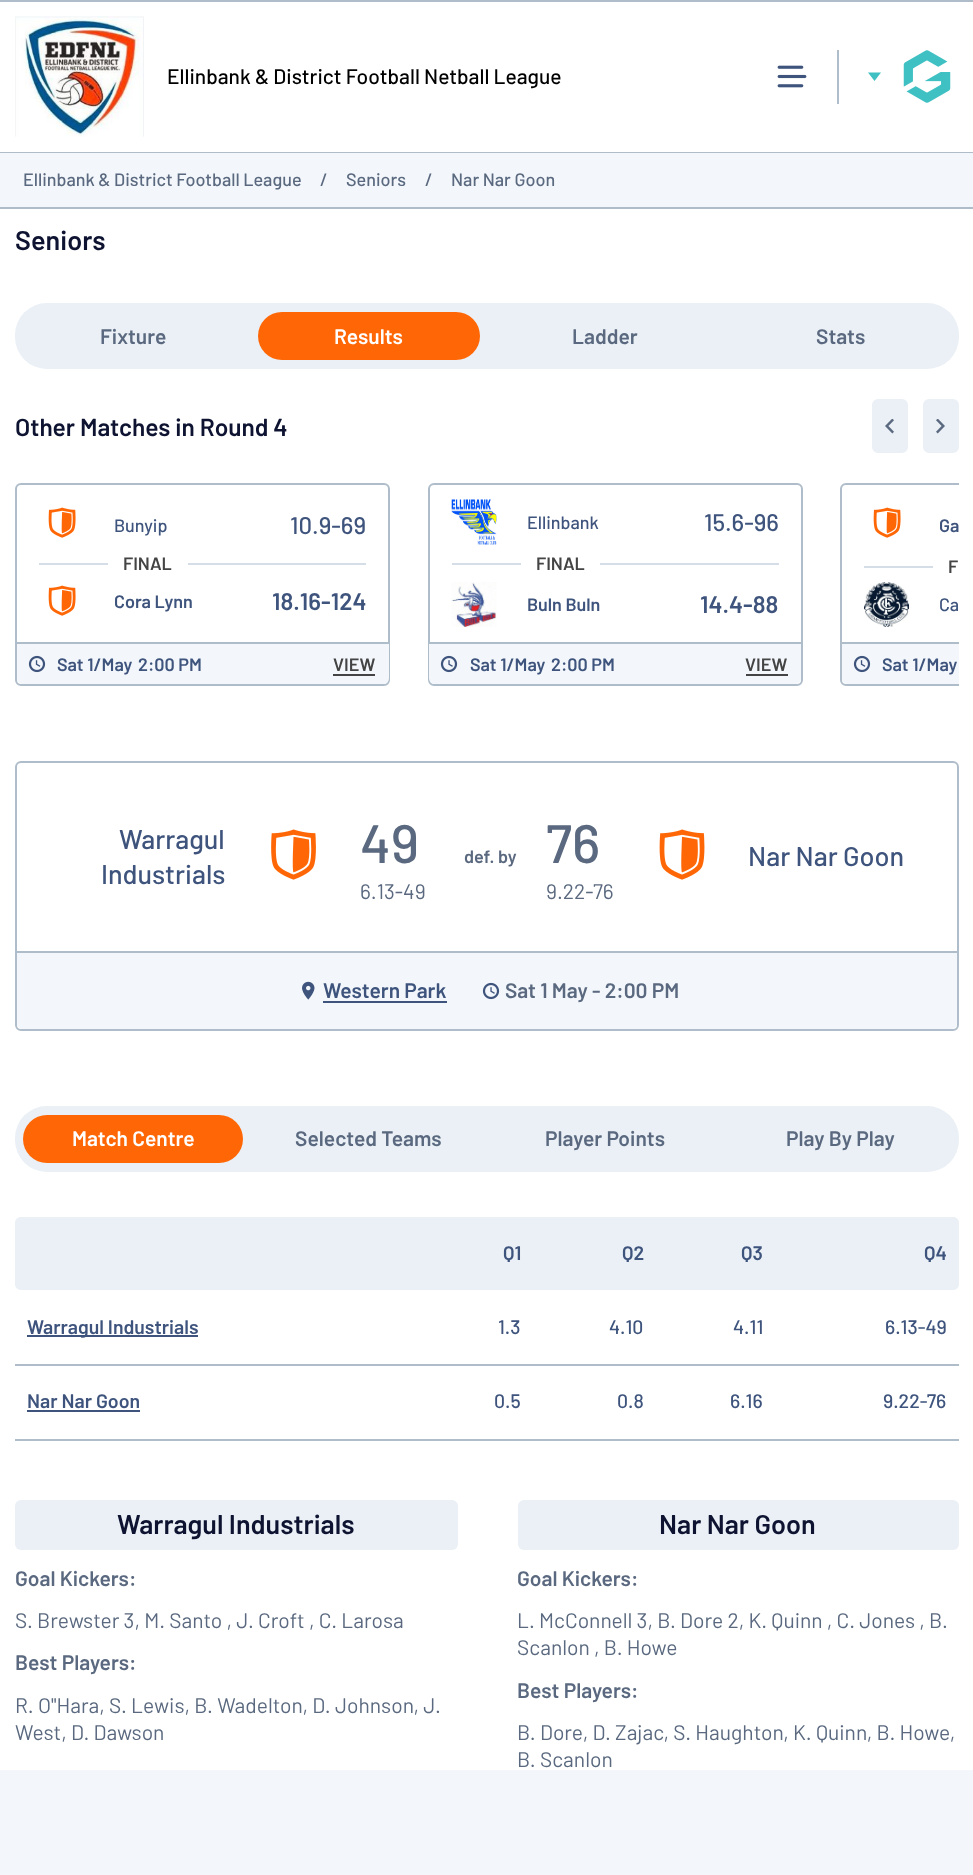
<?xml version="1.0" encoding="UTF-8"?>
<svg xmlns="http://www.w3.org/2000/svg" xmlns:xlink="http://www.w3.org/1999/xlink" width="973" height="1875">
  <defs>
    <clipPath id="clip1"><rect x="15" y="483" width="944" height="203" /></clipPath>
  </defs>
  <rect width="100%" height="100%" fill="#ffffff" />
  <rect width="973" height="2" fill="#afbdca" />
  <rect y="152" width="973" height="1" fill="#afbdca" />
  <image x="15" y="16" width="129" height="121" xlink:href="image1.png" />
  <image x="777" y="65" width="30" height="23" xlink:href="image2.png" />
  <rect x="837" y="50" width="2" height="54" fill="#afbdca" />
  <path d="M 874.5 81 l 6.5 -8.5 h -13 z" fill="#3fc0c3" />
  <image x="903" y="50" width="48" height="53" xlink:href="image3.png" />
  <rect y="153" width="973" height="54" fill="#f3f7fb" />
  <rect y="207" width="973" height="2" fill="#afbdca" />
  <rect x="15" y="303" width="944" height="66" rx="32" fill="#eaf0f5" />
  <rect x="258" y="312" width="222" height="48" rx="24" fill="#ff6706" />
  <rect x="873" y="400" width="34" height="52" rx="5" fill="#eaf0f5" stroke="#eaf0f5" stroke-width="2" />
  <image x="885" y="419" width="9" height="15" xlink:href="image4.png" />
  <rect x="924" y="400" width="34" height="52" rx="5" fill="#eaf0f5" stroke="#eaf0f5" stroke-width="2" />
  <image x="936" y="419" width="9" height="15" xlink:href="image5.png" />
  <rect x="16" y="484" width="373" height="201" rx="5" fill="none" stroke="#afbdca" stroke-width="2" />
  <image x="48" y="507" width="28" height="31" xlink:href="image6.png" />
  <rect x="39" y="563" width="69" height="2" fill="#d5dee7" />
  <rect x="188" y="563" width="178" height="2" fill="#d5dee7" />
  <image x="48" y="585" width="28" height="31" xlink:href="image6.png" />
  <path d="M 17 642 h 372 v 36 c 0 3.5 -2.5 6 -6 6 h -360 c -3.5 0 -6 -2.5 -6 -6 z" fill="#f3f7fb" />
  <rect x="17" y="642" width="372" height="2" fill="#afbdca" />
  <image x="28" y="655" width="18" height="18" xlink:href="image7.png" />
  <rect x="333" y="674" width="42" height="2" fill="#444444" />
  <rect x="429" y="484" width="373" height="201" rx="5" fill="none" stroke="#afbdca" stroke-width="2" />
  <image x="451" y="499" width="46" height="46" xlink:href="image8.png" />
  <rect x="452" y="563" width="69" height="2" fill="#d5dee7" />
  <rect x="600" y="563" width="179" height="2" fill="#d5dee7" />
  <image x="451" y="582" width="46" height="45" xlink:href="image9.png" />
  <path d="M 429 642 h 372 v 36 c 0 3.5 -2.5 6 -6 6 h -360 c -3.5 0 -6 -2.5 -6 -6 z" fill="#f3f7fb" />
  <rect x="429" y="642" width="372" height="2" fill="#afbdca" />
  <image x="440" y="655" width="18" height="18" xlink:href="image10.png" />
  <rect x="746" y="674" width="42" height="2" fill="#444444" />
  <g clip-path="url(#clip1)">
    <rect x="841" y="484" width="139" height="201" rx="5" fill="none" stroke="#afbdca" stroke-width="2" />
  </g>
  <image x="873" y="507" width="28" height="31" xlink:href="image6.png" />
  <rect x="864" y="566" width="69" height="2" fill="#d5dee7" />
  <image x="864" y="582" width="45" height="45" xlink:href="image11.png" />
  <path d="M 842 642 h 117 v 42 h -111 c -3.5 0 -6 -2.5 -6 -6 z" fill="#f3f7fb" />
  <rect x="842" y="642" width="117" height="2" fill="#afbdca" />
  <image x="853" y="655" width="18" height="18" xlink:href="image7.png" />
  <rect x="16" y="762" width="942" height="268" rx="5" fill="none" stroke="#afbdca" stroke-width="2" />
  <image x="271" y="829" width="45" height="51" xlink:href="image12.png" />
  <image x="659" y="829" width="46" height="51" xlink:href="image13.png" />
  <path d="M 17 951 h 940 v 72 c 0 3.5 -2.5 6 -6 6 h -928 c -3.5 0 -6 -2.5 -6 -6 z" fill="#f3f7fb" />
  <rect x="17" y="951" width="940" height="2" fill="#afbdca" />
  <image x="302" y="981" width="13" height="19" xlink:href="image14.png" />
  <rect x="323" y="1001" width="124" height="2" fill="#3e547d" />
  <image x="482" y="982" width="18" height="18" xlink:href="image10.png" />
  <rect x="15" y="1106" width="944" height="66" rx="32" fill="#eaf0f5" />
  <rect x="23" y="1115" width="220" height="48" rx="24" fill="#ff6706" />
  <path d="M 21 1217 h 405 v 73 h -405 c -3.5 0 -6 -2.5 -6 -6 v -61 c 0 -3.5 2.5 -6 6 -6 z" fill="#eaf0f5" />
  <rect x="426" y="1217" width="350" height="73" fill="#eaf0f5" />
  <path d="M 776 1217 h 177 c 3.5 0 6 2.5 6 6 v 61 c 0 3.5 -2.5 6 -6 6 h -177 z" fill="#eaf0f5" />
  <rect x="27" y="1335" width="171" height="2" fill="#3e547d" />
  <rect x="15" y="1364" width="944" height="2" fill="#afbdca" />
  <rect x="27" y="1410" width="113" height="2" fill="#3e547d" />
  <rect x="15" y="1439" width="944" height="2" fill="#afbdca" />
  <rect x="15" y="1500" width="443" height="50" rx="6" fill="#eaf0f5" />
  <rect x="518" y="1500" width="441" height="50" rx="6" fill="#eaf0f5" />
  <rect y="1770" width="973" height="105" fill="#f3f7fb" />
  <text x="167" y="84" style="font-family: Barlow; font-size: 21px; font-weight: 500; fill: #000000">Ellinbank &amp; District Football Netball League</text>
  <text x="23" y="186" style="font-family: Barlow; font-size: 18px; font-weight: 500; fill: #5a697f">Ellinbank &amp; District Football League</text>
  <text x="320" y="186" style="font-family: Barlow; font-size: 18px; font-weight: 500; fill: #5a697f">/</text>
  <text x="346" y="186" style="font-family: Barlow; font-size: 18px; font-weight: 500; fill: #5a697f">Seniors</text>
  <text x="425" y="186" style="font-family: Barlow; font-size: 18px; font-weight: 500; fill: #5a697f">/</text>
  <text x="451" y="186" style="font-family: Barlow; font-size: 18px; font-weight: 500; fill: #5a697f">Nar Nar Goon</text>
  <text x="15" y="250" style="font-family: Barlow; font-size: 27px; font-weight: 600; fill: #0d1330">Seniors</text>
  <text x="100" y="344" style="font-family: Barlow; font-size: 21px; font-weight: 600; fill: #5a697f">Fixture</text>
  <text x="334" y="344" style="font-family: Barlow; font-size: 21px; font-weight: 600; fill: #ffffff">Results</text>
  <text x="572" y="344" style="font-family: Barlow; font-size: 21px; font-weight: 600; fill: #5a697f">Ladder</text>
  <text x="816" y="344" style="font-family: Barlow; font-size: 21px; font-weight: 600; fill: #5a697f">Stats</text>
  <text x="15" y="436" style="font-family: Barlow; font-size: 24.5px; font-weight: 600; fill: #0d1330">Other Matches in Round 4</text>
  <text x="114" y="532" style="font-family: Barlow; font-size: 18px; font-weight: 500; fill: #3e547d">Bunyip</text>
  <text x="290" y="534" style="font-family: Barlow; font-size: 24px; font-weight: 500; fill: #3e547d">10.9-69</text>
  <text x="123" y="570" style="font-family: Barlow; font-size: 18px; font-weight: 600; fill: #444444">FINAL</text>
  <text x="114" y="608" style="font-family: Barlow; font-size: 18px; font-weight: 600; fill: #3e547d">Cora Lynn</text>
  <text x="272" y="610" style="font-family: Barlow; font-size: 24px; font-weight: 600; fill: #3e547d">18.16-124</text>
  <text x="57" y="671" style="font-family: Barlow; font-size: 18px; font-weight: 600; fill: #3e547d">Sat 1/May</text>
  <text x="138" y="671" style="font-family: Barlow; font-size: 18px; font-weight: 600; fill: #3e547d">2:00 PM</text>
  <text x="333" y="671" style="font-family: Barlow; font-size: 18px; font-weight: 600; fill: #444444">VIEW</text>
  <text x="527" y="529" style="font-family: Barlow; font-size: 18px; font-weight: 500; fill: #3e547d">Ellinbank</text>
  <text x="704" y="531" style="font-family: Barlow; font-size: 24px; font-weight: 500; fill: #3e547d">15.6-96</text>
  <text x="536" y="570" style="font-family: Barlow; font-size: 18px; font-weight: 600; fill: #444444">FINAL</text>
  <text x="527" y="611" style="font-family: Barlow; font-size: 18px; font-weight: 600; fill: #3e547d">Buln Buln</text>
  <text x="700" y="613" style="font-family: Barlow; font-size: 24px; font-weight: 600; fill: #3e547d">14.4-88</text>
  <text x="470" y="671" style="font-family: Barlow; font-size: 18px; font-weight: 600; fill: #3e547d">Sat 1/May</text>
  <text x="551" y="671" style="font-family: Barlow; font-size: 18px; font-weight: 600; fill: #3e547d">2:00 PM</text>
  <text x="745" y="671" style="font-family: Barlow; font-size: 18px; font-weight: 600; fill: #444444">VIEW</text>
  <text x="939" y="532" style="font-family: Barlow; font-size: 18px; font-weight: 600; fill: #3e547d">Ga</text>
  <text x="948" y="573" style="font-family: Barlow; font-size: 18px; font-weight: 600; fill: #444444">F</text>
  <text x="939" y="611" style="font-family: Barlow; font-size: 18px; font-weight: 500; fill: #3e547d">Ca</text>
  <text x="882" y="671" style="font-family: Barlow; font-size: 18px; font-weight: 600; fill: #3e547d">Sat 1/May</text>
  <text x="119" y="849" style="font-family: Barlow; font-size: 27px; font-weight: 500; fill: #3e547d">Warragul</text>
  <text x="101" y="884" style="font-family: Barlow; font-size: 27px; font-weight: 500; fill: #3e547d">Industrials</text>
  <text x="360" y="863" style="font-family: Barlow; font-size: 54px; font-weight: 500; fill: #5a697f">49</text>
  <text x="360" y="899" style="font-family: Barlow; font-size: 21px; fill: #5a697f">6.13-49</text>
  <text x="464" y="863" style="font-family: Barlow; font-size: 18px; font-weight: 600; fill: #5a697f">def. by</text>
  <text x="546" y="863" style="font-family: Barlow; font-size: 54px; font-weight: 500; fill: #5a697f">76</text>
  <text x="546" y="899" style="font-family: Barlow; font-size: 21px; fill: #5a697f">9.22-76</text>
  <text x="748" y="866" style="font-family: Barlow; font-size: 27px; font-weight: 500; fill: #3e547d">Nar Nar Goon</text>
  <text x="323" y="998" style="font-family: Barlow; font-size: 21px; font-weight: 600; fill: #3e547d">Western Park</text>
  <text x="505" y="998" style="font-family: Barlow; font-size: 21px; font-weight: 600; fill: #5a697f">Sat 1 May - 2:00 PM</text>
  <text x="72" y="1146" style="font-family: Barlow; font-size: 21px; font-weight: 600; fill: #ffffff">Match Centre</text>
  <text x="295" y="1146" style="font-family: Barlow; font-size: 21px; font-weight: 600; fill: #5a697f">Selected Teams</text>
  <text x="545" y="1146" style="font-family: Barlow; font-size: 21px; font-weight: 600; fill: #5a697f">Player Points</text>
  <text x="786" y="1146" style="font-family: Barlow; font-size: 21px; font-weight: 600; fill: #5a697f">Play By Play</text>
  <text x="503" y="1260" style="font-family: Barlow; font-size: 19.5px; font-weight: 600; fill: #3e547d">Q1</text>
  <text x="622" y="1260" style="font-family: Barlow; font-size: 19.5px; font-weight: 600; fill: #3e547d">Q2</text>
  <text x="741" y="1260" style="font-family: Barlow; font-size: 19.5px; font-weight: 600; fill: #3e547d">Q3</text>
  <text x="924" y="1260" style="font-family: Barlow; font-size: 19.5px; font-weight: 600; fill: #3e547d">Q4</text>
  <text x="27" y="1334" style="font-family: Barlow; font-size: 19.5px; font-weight: 600; fill: #3e547d">Warragul Industrials</text>
  <text x="498" y="1334" style="font-family: Barlow; font-size: 19.5px; font-weight: 500; fill: #3e547d">1.3</text>
  <text x="609" y="1334" style="font-family: Barlow; font-size: 19.5px; font-weight: 500; fill: #3e547d">4.10</text>
  <text x="733" y="1334" style="font-family: Barlow; font-size: 19.5px; font-weight: 500; fill: #3e547d">4.11</text>
  <text x="885" y="1334" style="font-family: Barlow; font-size: 19.5px; font-weight: 500; fill: #3e547d">6.13-49</text>
  <text x="27" y="1408" style="font-family: Barlow; font-size: 19.5px; font-weight: 600; fill: #3e547d">Nar Nar Goon</text>
  <text x="494" y="1408" style="font-family: Barlow; font-size: 19.5px; font-weight: 500; fill: #3e547d">0.5</text>
  <text x="617" y="1408" style="font-family: Barlow; font-size: 19.5px; font-weight: 500; fill: #3e547d">0.8</text>
  <text x="730" y="1408" style="font-family: Barlow; font-size: 19.5px; font-weight: 500; fill: #3e547d">6.16</text>
  <text x="883" y="1408" style="font-family: Barlow; font-size: 19.5px; font-weight: 500; fill: #3e547d">9.22-76</text>
  <text x="117" y="1534" style="font-family: Barlow; font-size: 27px; font-weight: 600; fill: #0d1330">Warragul Industrials</text>
  <text x="15" y="1586" style="font-family: Barlow; font-size: 21px; font-weight: 600; fill: #5a697f">Goal Kickers:</text>
  <text x="15" y="1628" style="font-family: Barlow; font-size: 21px; fill: #5a697f">S. Brewster 3, M. Santo , J. Croft , C. Larosa</text>
  <text x="15" y="1670" style="font-family: Barlow; font-size: 21px; font-weight: 600; fill: #5a697f">Best Players:</text>
  <text x="15" y="1713" style="font-family: Barlow; font-size: 21px; fill: #5a697f">R. O''Hara, S. Lewis, B. Wadelton, D. Johnson, J.</text>
  <text x="15" y="1740" style="font-family: Barlow; font-size: 21px; fill: #5a697f">West, D. Dawson</text>
  <text x="659" y="1534" style="font-family: Barlow; font-size: 27px; font-weight: 600; fill: #0d1330">Nar Nar Goon</text>
  <text x="517" y="1586" style="font-family: Barlow; font-size: 21px; font-weight: 600; fill: #5a697f">Goal Kickers:</text>
  <text x="517" y="1628" style="font-family: Barlow; font-size: 21px; fill: #5a697f">L. McConnell 3, B. Dore 2, K. Quinn , C. Jones , B.</text>
  <text x="517" y="1655" style="font-family: Barlow; font-size: 21px; fill: #5a697f">Scanlon , B. Howe</text>
  <text x="517" y="1698" style="font-family: Barlow; font-size: 21px; font-weight: 600; fill: #5a697f">Best Players:</text>
  <text x="517" y="1740" style="font-family: Barlow; font-size: 21px; fill: #5a697f">B. Dore, D. Zajac, S. Haughton, K. Quinn, B. Howe,</text>
  <text x="517" y="1767" style="font-family: Barlow; font-size: 21px; fill: #5a697f">B. Scanlon</text>
</svg>
